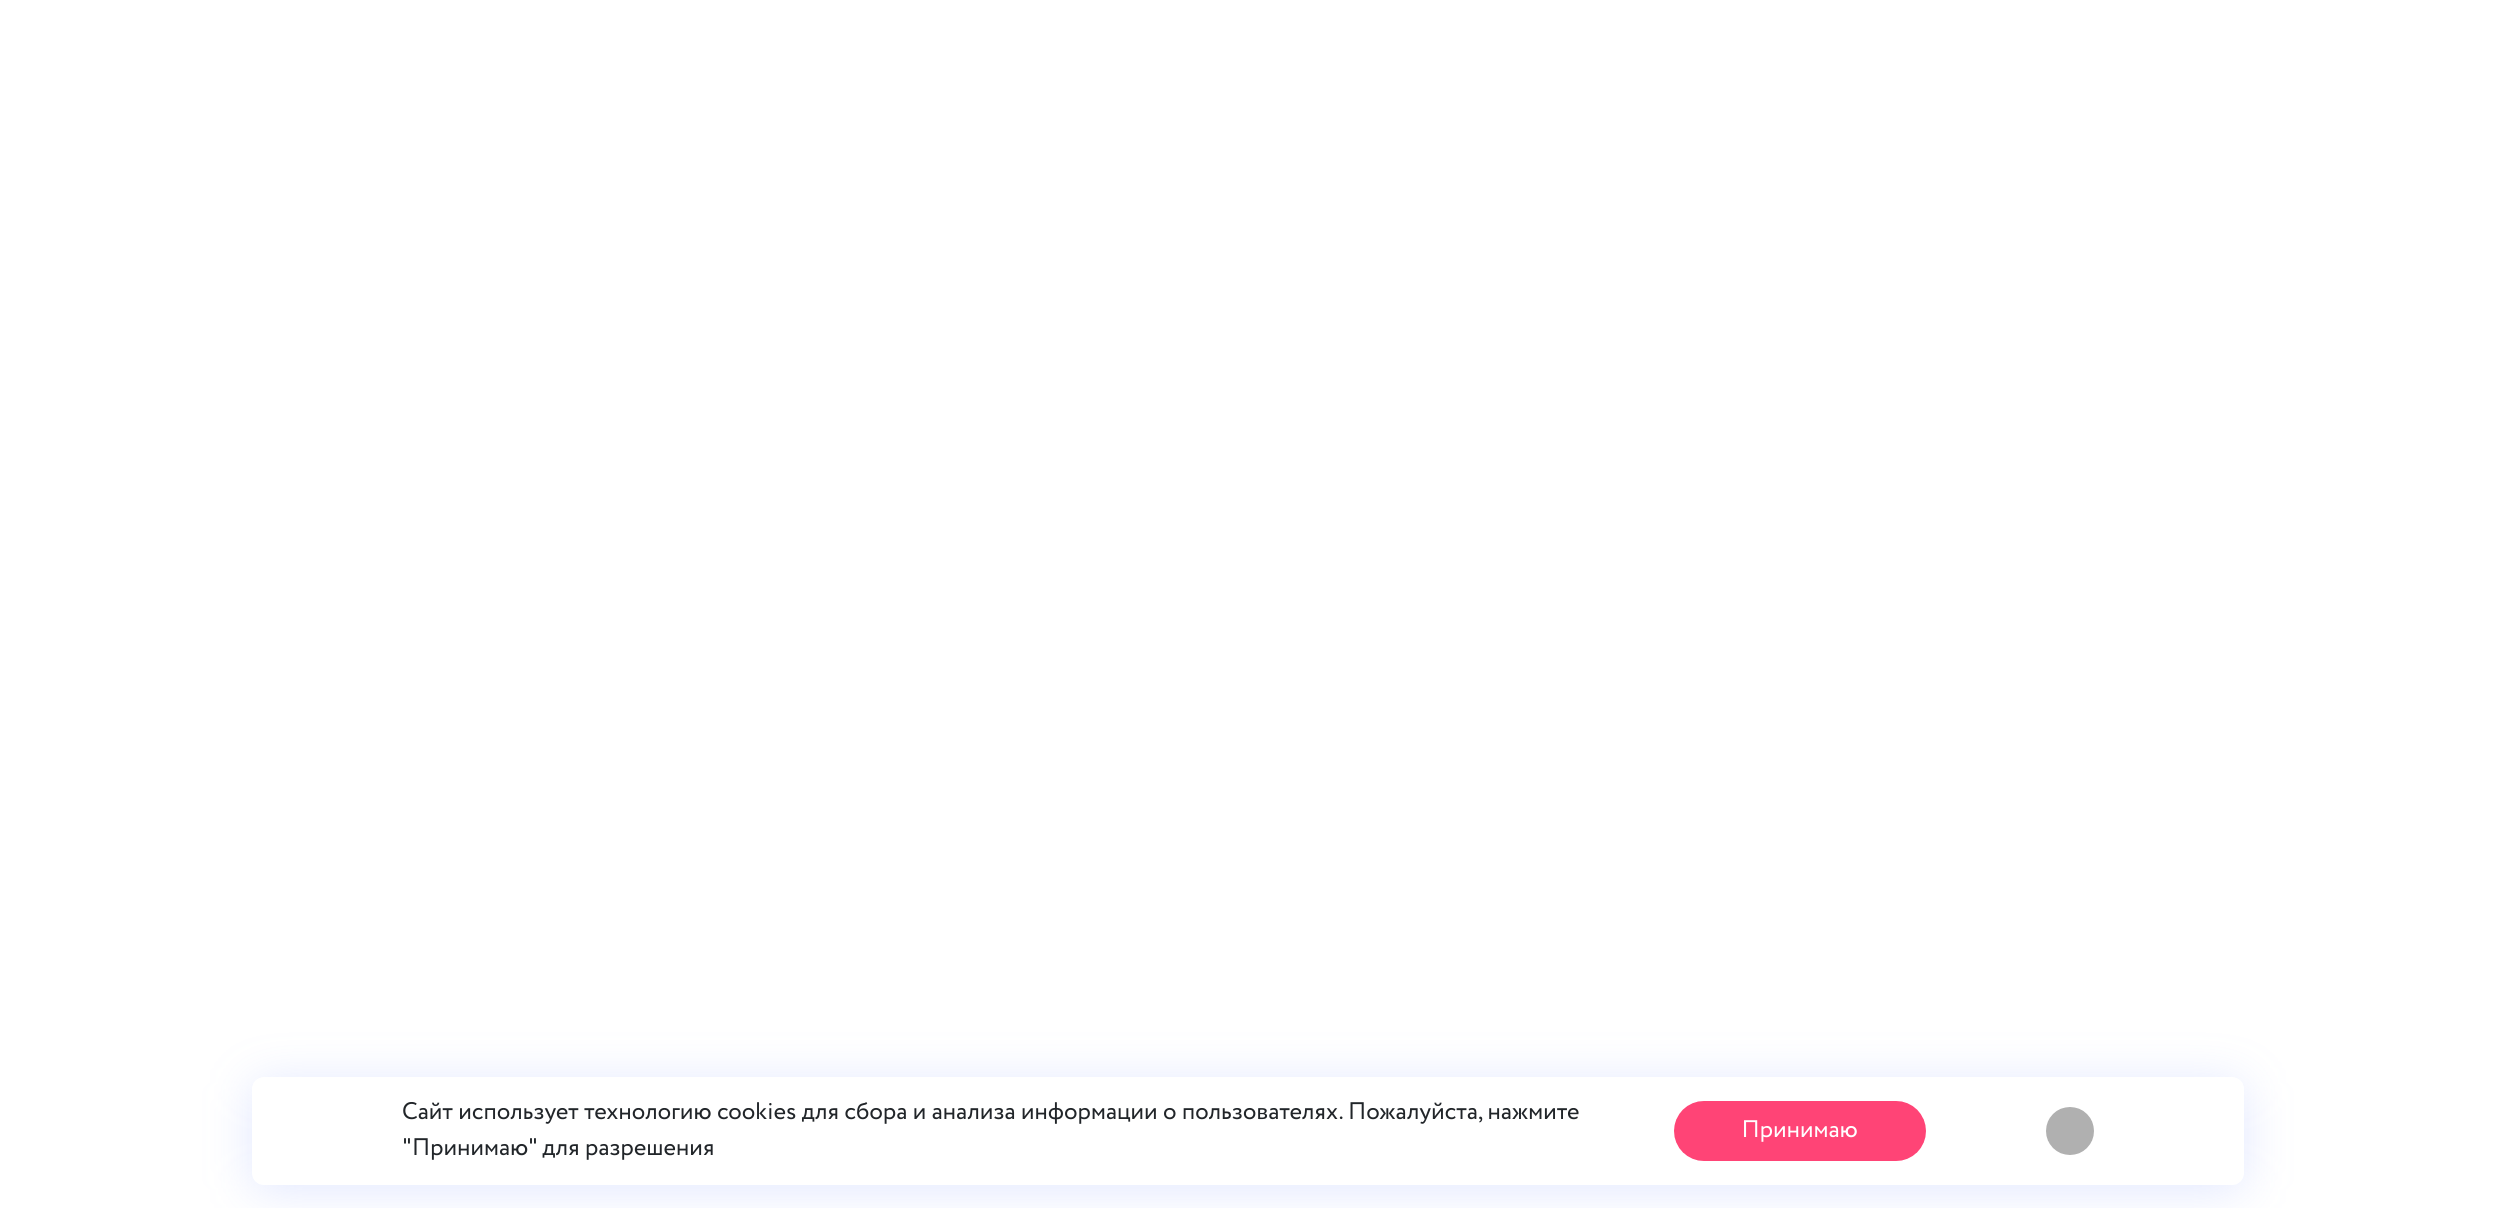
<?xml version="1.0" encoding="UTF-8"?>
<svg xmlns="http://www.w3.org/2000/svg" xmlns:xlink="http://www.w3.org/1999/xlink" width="2496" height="1208">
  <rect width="100%" height="100%" fill="#ffffff" />
  <rect x="252" y="1082" width="1992" height="108" rx="12" fill="#6b88ff" fill-opacity="0.2" filter="blur(24px)" />
  <rect x="252" y="1077" width="1992" height="108" rx="12" fill="#ffffff" />
  <image x="403" y="1102" width="1176" height="22" xlink:href="image1.png" />
  <image x="404" y="1138" width="309" height="22" xlink:href="image2.png" />
  <rect x="1674" y="1101" width="252" height="60" rx="30" fill="#ff4476" />
  <image x="1744" y="1120" width="113" height="22" xlink:href="image3.png" />
  <circle cx="2070" cy="1131" r="24" fill="#b0b0b0" />
</svg>
